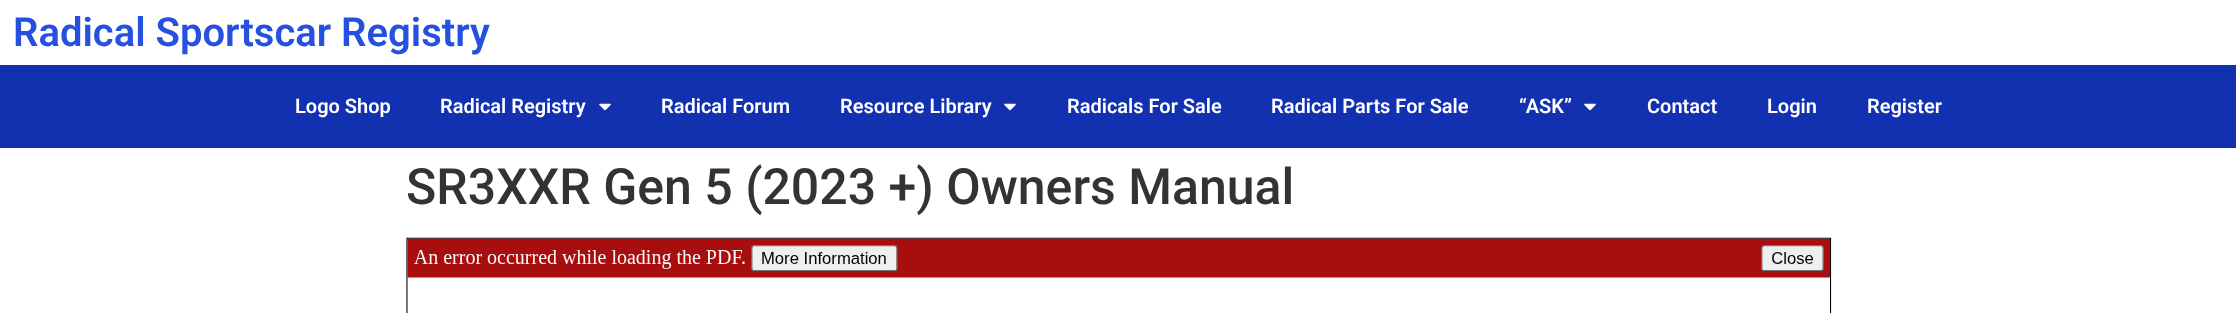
<?xml version="1.0" encoding="UTF-8"?>
<svg xmlns="http://www.w3.org/2000/svg" xmlns:xlink="http://www.w3.org/1999/xlink" width="2236" height="313">
  <rect width="100%" height="100%" fill="#ffffff" />
  <rect y="65" width="2236" height="83" fill="#1131b1" />
  <image x="599" y="103" width="12" height="8" xlink:href="image1.png" />
  <image x="1004" y="103" width="12" height="8" xlink:href="image1.png" />
  <image x="1584" y="103" width="12" height="8" xlink:href="image1.png" />
  <image x="406" y="237" width="1426" height="76" xlink:href="image2.png" />
  <text x="13" y="46" style="font-family: Roboto; font-size: 40px; font-weight: 600; fill: #2550e0">Radical Sportscar Registry</text>
  <text x="295" y="113" style="font-family: Roboto; font-size: 20px; font-weight: 600; fill: #ffffff">Logo Shop</text>
  <text x="440" y="113" style="font-family: Roboto; font-size: 20px; font-weight: 600; fill: #ffffff">Radical Registry</text>
  <text x="661" y="113" style="font-family: Roboto; font-size: 20px; font-weight: 600; fill: #ffffff">Radical Forum</text>
  <text x="840" y="113" style="font-family: Roboto; font-size: 20px; font-weight: 600; fill: #ffffff">Resource Library</text>
  <text x="1067" y="113" style="font-family: Roboto; font-size: 20px; font-weight: 600; fill: #ffffff">Radicals For Sale</text>
  <text x="1271" y="113" style="font-family: Roboto; font-size: 20px; font-weight: 600; fill: #ffffff">Radical Parts For Sale</text>
  <text x="1519" y="113" style="font-family: Roboto; font-size: 20px; font-weight: 600; fill: #ffffff">“ASK”</text>
  <text x="1647" y="113" style="font-family: Roboto; font-size: 20px; font-weight: 600; fill: #ffffff">Contact</text>
  <text x="1767" y="113" style="font-family: Roboto; font-size: 20px; font-weight: 600; fill: #ffffff">Login</text>
  <text x="1867" y="113" style="font-family: Roboto; font-size: 20px; font-weight: 600; fill: #ffffff">Register</text>
  <text x="406" y="204" style="font-family: Roboto; font-size: 50px; font-weight: 500; fill: #333333">SR3XXR Gen 5 (2023 +) Owners Manual</text>
</svg>
